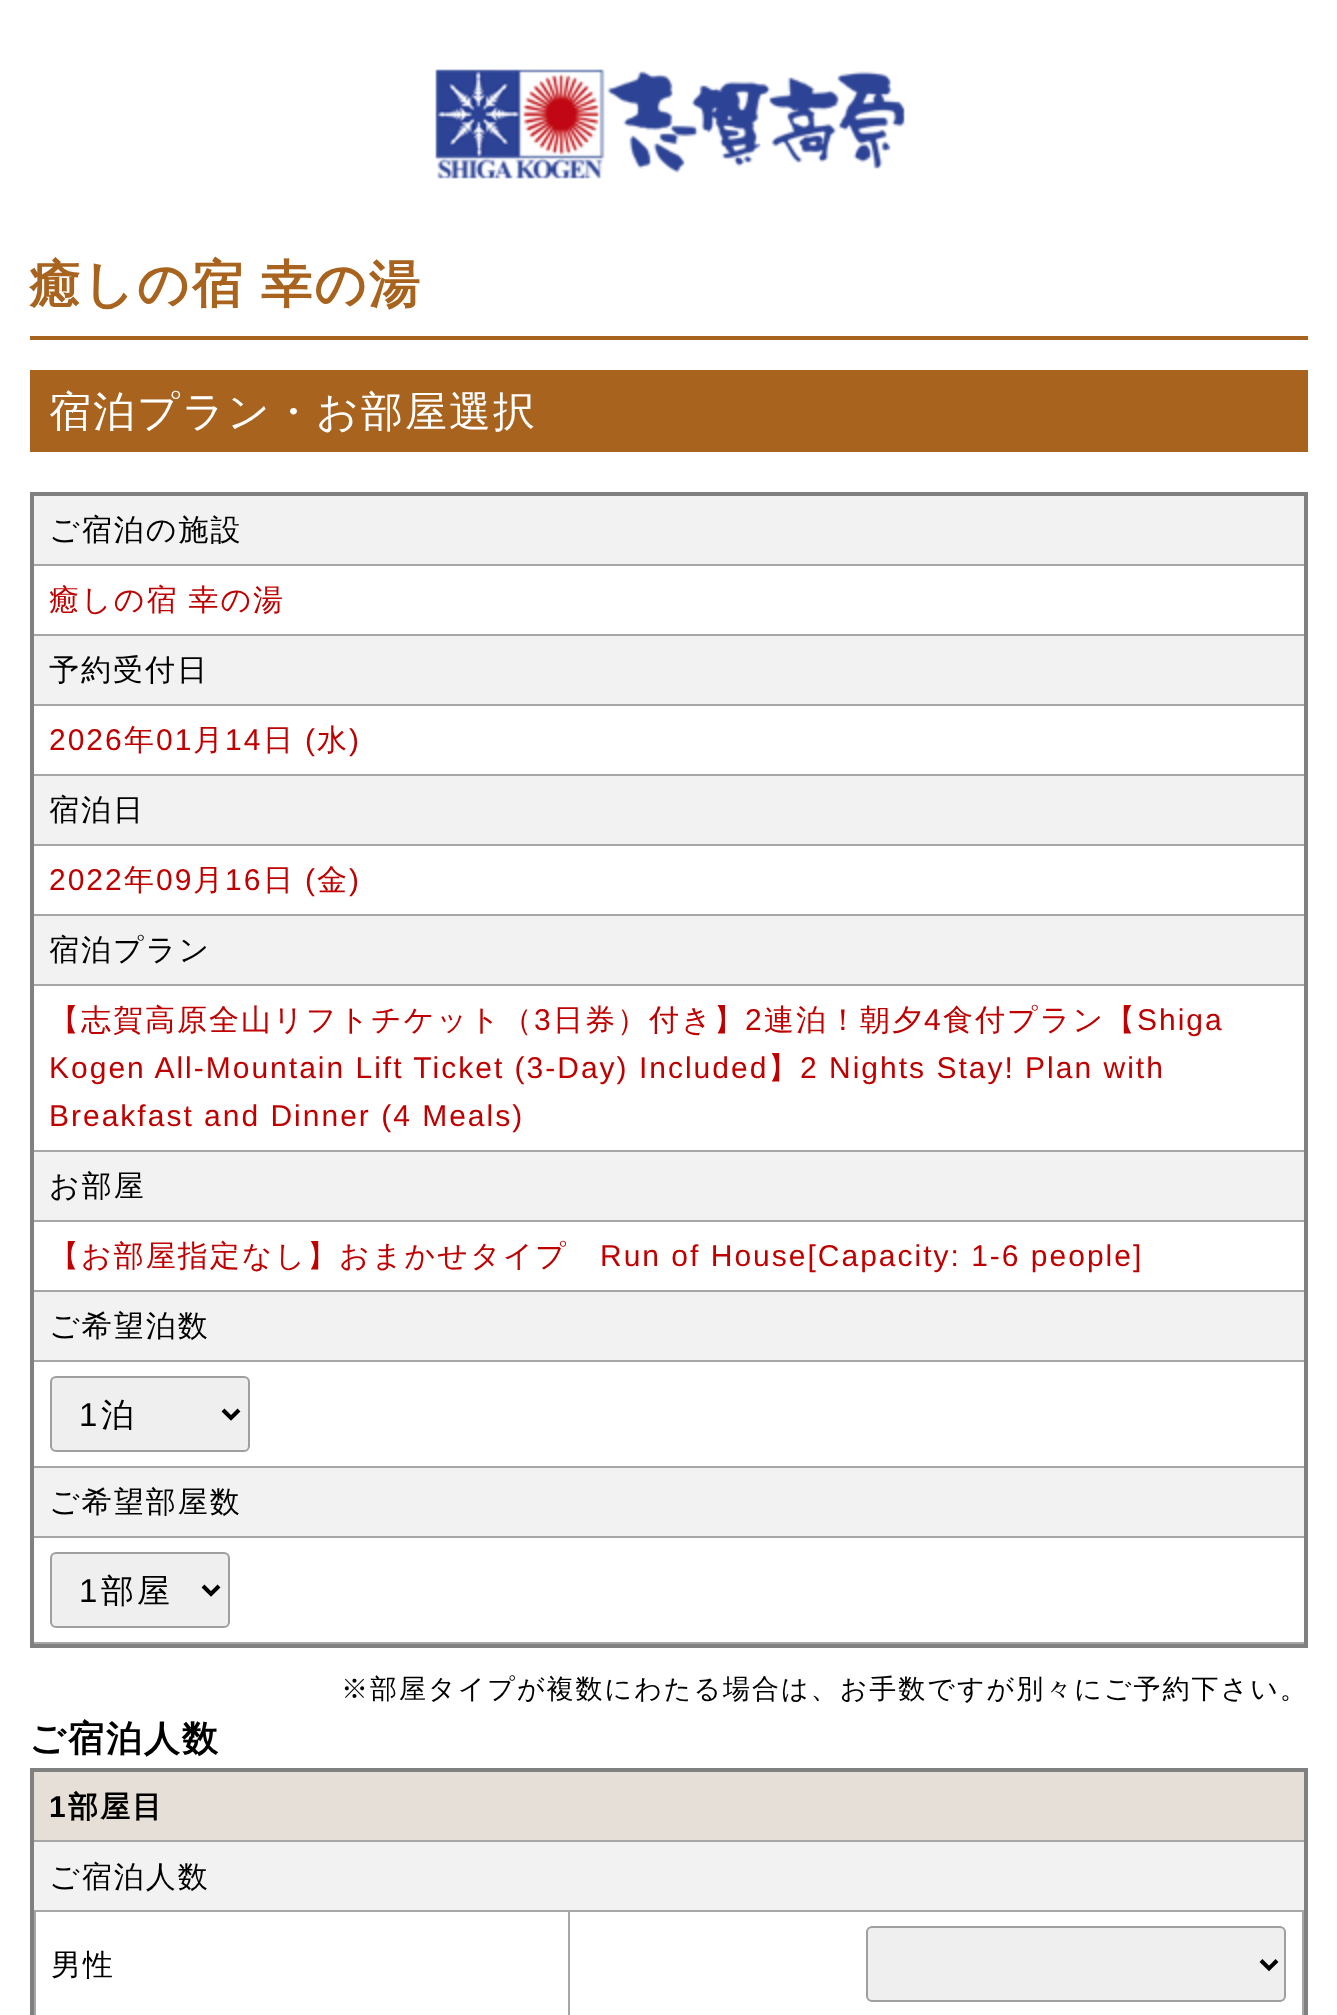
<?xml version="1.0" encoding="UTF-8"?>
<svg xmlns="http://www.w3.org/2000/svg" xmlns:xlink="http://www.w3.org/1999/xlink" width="1337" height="2015">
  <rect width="100%" height="100%" fill="#ffffff" />
  <image x="435" y="69" width="470" height="110" xlink:href="image1.png" />
  <rect x="30" y="336" width="1278" height="4" fill="#a8631e" />
  <rect x="30" y="370" width="1278" height="82" fill="#a8631e" />
  <rect x="30" y="492" width="1278" height="4" fill="#808080" />
  <rect x="1304" y="492" width="4" height="1156" fill="#808080" />
  <rect x="30" y="1644" width="1278" height="4" fill="#808080" />
  <rect x="30" y="492" width="4" height="1156" fill="#808080" />
  <rect x="34" y="496" width="1270" height="68" fill="#f2f2f2" />
  <rect x="34" y="564" width="1270" height="2" fill="#a6a6a6" />
  <rect x="34" y="634" width="1270" height="2" fill="#a6a6a6" />
  <rect x="34" y="636" width="1270" height="68" fill="#f2f2f2" />
  <rect x="34" y="704" width="1270" height="2" fill="#a6a6a6" />
  <rect x="34" y="774" width="1270" height="2" fill="#a6a6a6" />
  <rect x="34" y="776" width="1270" height="68" fill="#f2f2f2" />
  <rect x="34" y="844" width="1270" height="2" fill="#a6a6a6" />
  <rect x="34" y="914" width="1270" height="2" fill="#a6a6a6" />
  <rect x="34" y="916" width="1270" height="68" fill="#f2f2f2" />
  <rect x="34" y="984" width="1270" height="2" fill="#a6a6a6" />
  <rect x="34" y="1150" width="1270" height="2" fill="#a6a6a6" />
  <rect x="34" y="1152" width="1270" height="68" fill="#f2f2f2" />
  <rect x="34" y="1220" width="1270" height="2" fill="#a6a6a6" />
  <rect x="34" y="1290" width="1270" height="2" fill="#a6a6a6" />
  <rect x="34" y="1292" width="1270" height="68" fill="#f2f2f2" />
  <rect x="34" y="1360" width="1270" height="2" fill="#a6a6a6" />
  <rect x="34" y="1466" width="1270" height="2" fill="#a6a6a6" />
  <rect x="51" y="1377" width="198" height="74" rx="5" fill="#efefef" stroke="#9f9f9f" stroke-width="2" />
  <path d="M 223 1410 l 8 8 l 8 -8" fill="none" stroke="#000000" stroke-width="4" />
  <rect x="34" y="1468" width="1270" height="68" fill="#f2f2f2" />
  <rect x="34" y="1536" width="1270" height="2" fill="#a6a6a6" />
  <rect x="34" y="1642" width="1270" height="2" fill="#a6a6a6" />
  <rect x="51" y="1553" width="178" height="74" rx="5" fill="#efefef" stroke="#9f9f9f" stroke-width="2" />
  <path d="M 203 1586 l 8 8 l 8 -8" fill="none" stroke="#000000" stroke-width="4" />
  <rect x="30" y="1768" width="1278" height="4" fill="#808080" />
  <rect x="1304" y="1768" width="4" height="247" fill="#808080" />
  <rect x="30" y="1768" width="4" height="247" fill="#808080" />
  <rect x="34" y="1772" width="1270" height="68" fill="#e6dfd7" />
  <rect x="34" y="1840" width="1270" height="2" fill="#a6a6a6" />
  <rect x="34" y="1842" width="1270" height="68" fill="#f2f2f2" />
  <rect x="34" y="1910" width="1270" height="2" fill="#a6a6a6" />
  <rect x="1302" y="1912" width="2" height="103" fill="#a6a6a6" />
  <rect x="34" y="1912" width="2" height="103" fill="#a6a6a6" />
  <rect x="568" y="1912" width="2" height="103" fill="#a6a6a6" />
  <rect x="867" y="1927" width="418" height="74" rx="5" fill="#efefef" stroke="#9f9f9f" stroke-width="2" />
  <path d="M 1261 1960.5 l 8 8 l 8 -8" fill="none" stroke="#000000" stroke-width="4" />
  <text x="29" y="302" word-spacing="-1" style="font-family: WenQuanYi Zen Hei; font-size: 51.25px; font-weight: bold; letter-spacing: 2px; fill: #a8631e">癒しの宿 幸の湯</text>
  <text x="49" y="426" style="font-family: WenQuanYi Zen Hei; font-size: 42px; font-weight: 500; letter-spacing: 2px; fill: #ffffff">宿泊プラン・お部屋選択</text>
  <text x="49" y="540" style="font-family: WenQuanYi Zen Hei; font-size: 30px; font-weight: 500; letter-spacing: 2px; fill: #000000">ご宿泊の施設</text>
  <text x="49" y="610" word-spacing="-1" style="font-family: WenQuanYi Zen Hei; font-size: 30px; font-weight: 500; letter-spacing: 2px; fill: #bf0000">癒しの宿 幸の湯</text>
  <text x="49" y="680" style="font-family: WenQuanYi Zen Hei; font-size: 30px; font-weight: 500; letter-spacing: 2px; fill: #000000">予約受付日</text>
  <text x="49" y="750" style="font-family: Liberation Sans; font-size: 30px; letter-spacing: 2px; fill: #bf0000">2026</text>
  <text x="124" y="750" style="font-family: WenQuanYi Zen Hei; font-size: 30px; font-weight: 500; letter-spacing: 2px; fill: #bf0000">年</text>
  <text x="156" y="750" style="font-family: Liberation Sans; font-size: 30px; letter-spacing: 2px; fill: #bf0000">01</text>
  <text x="193" y="750" style="font-family: WenQuanYi Zen Hei; font-size: 30px; font-weight: 500; letter-spacing: 2px; fill: #bf0000">月</text>
  <text x="225" y="750" style="font-family: Liberation Sans; font-size: 30px; letter-spacing: 2px; fill: #bf0000">14</text>
  <text x="263" y="750" style="font-family: WenQuanYi Zen Hei; font-size: 30px; font-weight: 500; letter-spacing: 2px; fill: #bf0000">日</text>
  <text x="305" y="750" style="font-family: Liberation Sans; font-size: 30px; letter-spacing: 2px; fill: #bf0000">(</text>
  <text x="317" y="750" style="font-family: WenQuanYi Zen Hei; font-size: 30px; font-weight: 500; letter-spacing: 2px; fill: #bf0000">水</text>
  <text x="349" y="750" style="font-family: Liberation Sans; font-size: 30px; letter-spacing: 2px; fill: #bf0000">)</text>
  <text x="49" y="820" style="font-family: WenQuanYi Zen Hei; font-size: 30px; font-weight: 500; letter-spacing: 2px; fill: #000000">宿泊日</text>
  <text x="49" y="890" style="font-family: Liberation Sans; font-size: 30px; letter-spacing: 2px; fill: #bf0000">2022</text>
  <text x="124" y="890" style="font-family: WenQuanYi Zen Hei; font-size: 30px; font-weight: 500; letter-spacing: 2px; fill: #bf0000">年</text>
  <text x="156" y="890" style="font-family: Liberation Sans; font-size: 30px; letter-spacing: 2px; fill: #bf0000">09</text>
  <text x="193" y="890" style="font-family: WenQuanYi Zen Hei; font-size: 30px; font-weight: 500; letter-spacing: 2px; fill: #bf0000">月</text>
  <text x="225" y="890" style="font-family: Liberation Sans; font-size: 30px; letter-spacing: 2px; fill: #bf0000">16</text>
  <text x="263" y="890" style="font-family: WenQuanYi Zen Hei; font-size: 30px; font-weight: 500; letter-spacing: 2px; fill: #bf0000">日</text>
  <text x="305" y="890" style="font-family: Liberation Sans; font-size: 30px; letter-spacing: 2px; fill: #bf0000">(</text>
  <text x="317" y="890" style="font-family: WenQuanYi Zen Hei; font-size: 30px; font-weight: 500; letter-spacing: 2px; fill: #bf0000">金</text>
  <text x="349" y="890" style="font-family: Liberation Sans; font-size: 30px; letter-spacing: 2px; fill: #bf0000">)</text>
  <text x="49" y="960" style="font-family: WenQuanYi Zen Hei; font-size: 30px; font-weight: 500; letter-spacing: 2px; fill: #000000">宿泊プラン</text>
  <text x="49" y="1030" style="font-family: WenQuanYi Zen Hei; font-size: 30px; font-weight: 500; letter-spacing: 2px; fill: #bf0000">【志賀高原全山リフトチケット（</text>
  <text x="534" y="1030" style="font-family: Liberation Sans; font-size: 30px; letter-spacing: 2px; fill: #bf0000">3</text>
  <text x="553" y="1030" style="font-family: WenQuanYi Zen Hei; font-size: 30px; font-weight: 500; letter-spacing: 2px; fill: #bf0000">日券）付き】</text>
  <text x="745" y="1030" style="font-family: Liberation Sans; font-size: 30px; letter-spacing: 2px; fill: #bf0000">2</text>
  <text x="764" y="1030" style="font-family: WenQuanYi Zen Hei; font-size: 30px; font-weight: 500; letter-spacing: 2px; fill: #bf0000">連泊！朝夕</text>
  <text x="924" y="1030" style="font-family: Liberation Sans; font-size: 30px; letter-spacing: 2px; fill: #bf0000">4</text>
  <text x="943" y="1030" style="font-family: WenQuanYi Zen Hei; font-size: 30px; font-weight: 500; letter-spacing: 2px; fill: #bf0000">食付プラン【</text>
  <text x="1137" y="1030" style="font-family: Liberation Sans; font-size: 30px; letter-spacing: 2px; fill: #bf0000">Shiga</text>
  <text x="49" y="1078" style="font-family: Liberation Sans; font-size: 30px; letter-spacing: 2px; fill: #bf0000">Kogen All-Mountain Lift Ticket (3-Day) Included</text>
  <text x="768" y="1078" style="font-family: WenQuanYi Zen Hei; font-size: 30px; font-weight: 500; letter-spacing: 2px; fill: #bf0000">】</text>
  <text x="800" y="1078" style="font-family: Liberation Sans; font-size: 30px; letter-spacing: 2px; fill: #bf0000">2 Nights Stay! Plan with</text>
  <text x="49" y="1126" style="font-family: Liberation Sans; font-size: 30px; letter-spacing: 2px; fill: #bf0000">Breakfast and Dinner (4 Meals)</text>
  <text x="49" y="1196" style="font-family: WenQuanYi Zen Hei; font-size: 30px; font-weight: 500; letter-spacing: 2px; fill: #000000">お部屋</text>
  <text x="49" y="1266" style="font-family: WenQuanYi Zen Hei; font-size: 30px; font-weight: 500; letter-spacing: 2px; fill: #bf0000">【お部屋指定なし】おまかせタイプ</text>
  <text x="600" y="1266" style="font-family: Liberation Sans; font-size: 30px; letter-spacing: 2px; fill: #bf0000">Run of House[Capacity: 1-6 people]</text>
  <text x="49" y="1336" style="font-family: WenQuanYi Zen Hei; font-size: 30px; font-weight: 500; letter-spacing: 2px; fill: #000000">ご希望泊数</text>
  <text x="79" y="1426" style="font-family: Liberation Sans; font-size: 33px; letter-spacing: 3px; fill: #000000">1</text>
  <text x="101" y="1426" style="font-family: WenQuanYi Zen Hei; font-size: 33px; font-weight: 500; letter-spacing: 3px; fill: #000000">泊</text>
  <text x="49" y="1512" style="font-family: WenQuanYi Zen Hei; font-size: 30px; font-weight: 500; letter-spacing: 2px; fill: #000000">ご希望部屋数</text>
  <text x="79" y="1602" style="font-family: Liberation Sans; font-size: 33px; letter-spacing: 3px; fill: #000000">1</text>
  <text x="101" y="1602" style="font-family: WenQuanYi Zen Hei; font-size: 33px; font-weight: 500; letter-spacing: 3px; fill: #000000">部屋</text>
  <text x="341" y="1698" style="font-family: WenQuanYi Zen Hei; font-size: 27px; font-weight: 500; letter-spacing: 2px; fill: #000000">※部屋タイプが複数にわたる場合は、お手数ですが別々にご予約下さい。</text>
  <text x="29" y="1751" style="font-family: WenQuanYi Zen Hei; font-size: 36px; font-weight: bold; letter-spacing: 2px; fill: #000000">ご宿泊人数</text>
  <text x="49" y="1817" style="font-family: Liberation Sans; font-size: 30px; font-weight: bold; letter-spacing: 2px; fill: #000000">1</text>
  <text x="68" y="1817" style="font-family: WenQuanYi Zen Hei; font-size: 30px; font-weight: bold; letter-spacing: 2px; fill: #000000">部屋目</text>
  <text x="49" y="1887" style="font-family: WenQuanYi Zen Hei; font-size: 30px; font-weight: 500; letter-spacing: 2px; fill: #000000">ご宿泊人数</text>
  <text x="51" y="1975" style="font-family: WenQuanYi Zen Hei; font-size: 30px; font-weight: 500; letter-spacing: 2px; fill: #000000">男性</text>
</svg>
